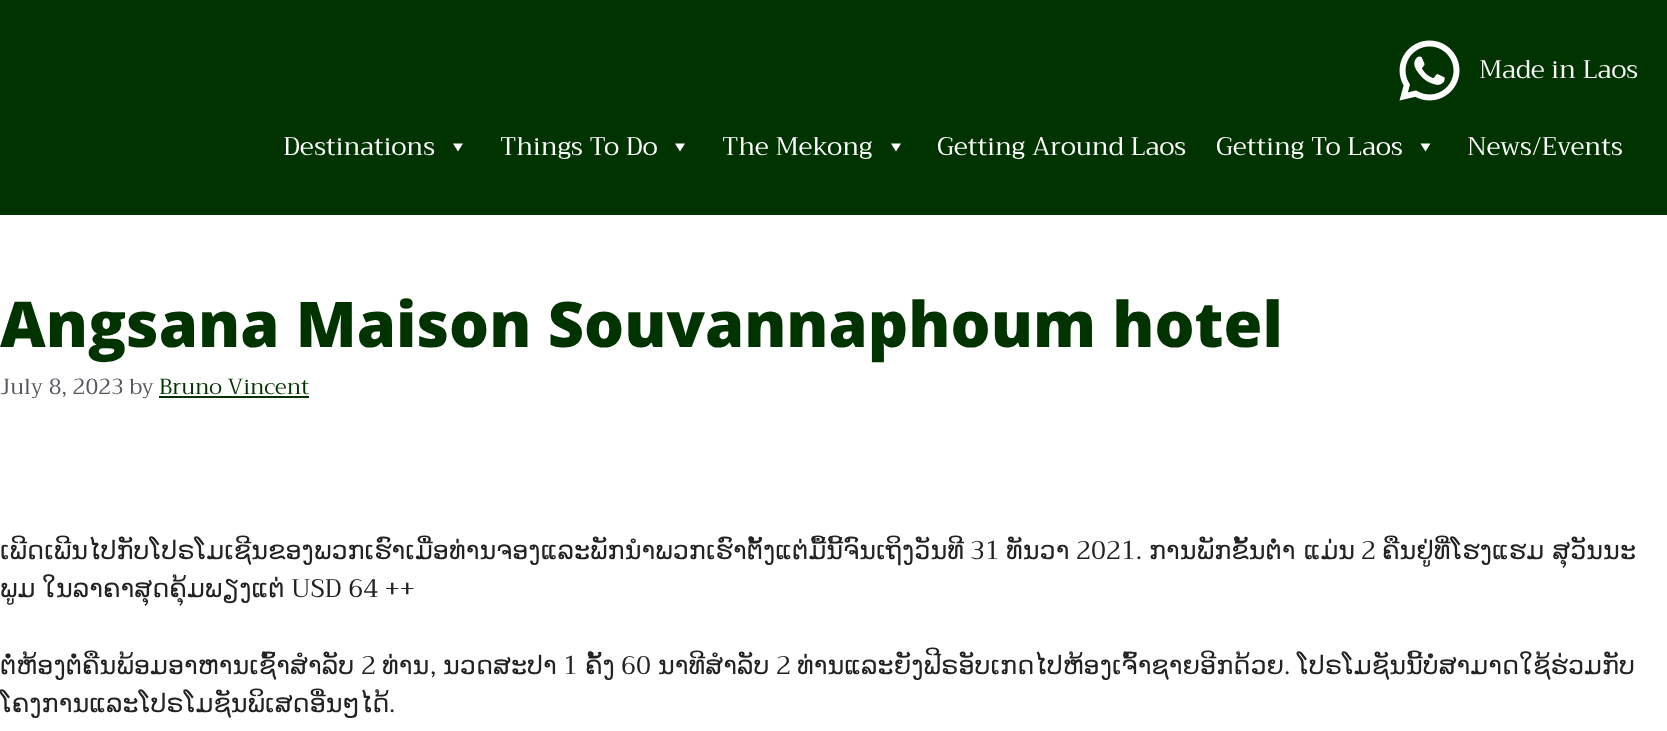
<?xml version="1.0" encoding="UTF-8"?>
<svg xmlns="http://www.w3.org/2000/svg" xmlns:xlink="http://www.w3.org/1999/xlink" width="1667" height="731">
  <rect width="100%" height="100%" fill="#ffffff" />
  <rect width="1667" height="215" fill="#003300" />
  <image x="1399" y="40" width="61" height="61" xlink:href="image1.png" />
  <path d="M 463 143.5 l -5 8 l -5 -8 z" fill="#ffffff" />
  <path d="M 685 143.5 l -5 8 l -5 -8 z" fill="#ffffff" />
  <path d="M 901 143.5 l -5 8 l -5 -8 z" fill="#ffffff" />
  <path d="M 1430.5 143.5 l -5 8 l -5 -8 z" fill="#ffffff" />
  <rect x="159" y="396" width="150" height="2" fill="#003300" />
  <text x="1479" y="78" style="font-family: Trirong; font-size: 25.5px; fill: #f9f9f9">Made in Laos</text>
  <text x="283" y="155" style="font-family: Trirong; font-size: 25.5px; fill: #ffffff">Destinations</text>
  <text x="500" y="155" style="font-family: Trirong; font-size: 25.5px; fill: #ffffff">Things To Do</text>
  <text x="722" y="155" style="font-family: Trirong; font-size: 25.5px; fill: #ffffff">The Mekong</text>
  <text x="937" y="155" style="font-family: Trirong; font-size: 25.5px; fill: #ffffff">Getting Around Laos</text>
  <text x="1216" y="155" style="font-family: Trirong; font-size: 25.5px; fill: #ffffff">Getting To Laos</text>
  <text x="1467" y="155" style="font-family: Trirong; font-size: 25.5px; fill: #ffffff">News/Events</text>
  <text x="0" y="347" style="font-family: Open Sans; font-size: 63px; font-weight: 800; fill: #003300">Angsana Maison Souvannaphoum hotel</text>
  <text x="0" y="394" style="font-family: Trirong; font-size: 21.75px; fill: #575760">July 8, 2023 by</text>
  <text x="159" y="394" style="font-family: Trirong; font-size: 21.75px; fill: #003300">Bruno Vincent</text>
  <text x="0" y="559" style="font-family: DejaVu Sans; font-size: 25.5px; fill: #222222">ເພີດເພີນໄປກັບໂປຣໂມເຊີນຂອງພວກເຮົາເມື່ອທ່ານຈອງແລະພັກນຳພວກເຮົາຕັ້ງແຕ່ມື້ນີ້ຈົນເຖິງວັນທີ</text>
  <text x="970" y="559" style="font-family: Trirong; font-size: 25.5px; fill: #222222">31</text>
  <text x="1006" y="559" style="font-family: DejaVu Sans; font-size: 25.5px; fill: #222222">ທັນວາ</text>
  <text x="1076" y="559" style="font-family: Trirong; font-size: 25.5px; fill: #222222">2021.</text>
  <text x="1149" y="559" style="font-family: DejaVu Sans; font-size: 25.5px; fill: #222222">ການພັກຂັ້ນຕໍ່າ ແມ່ນ</text>
  <text x="1361" y="559" style="font-family: Trirong; font-size: 25.5px; fill: #222222">2</text>
  <text x="1382" y="559" style="font-family: DejaVu Sans; font-size: 25.5px; fill: #222222">ຄືນຢູ່ທີ່ໂຮງແຮມ ສຸວັນນະ</text>
  <text x="0" y="597" style="font-family: DejaVu Sans; font-size: 25.5px; fill: #222222">ພູມ</text>
  <text x="42" y="597" style="font-family: DejaVu Sans; font-size: 25.5px; fill: #222222">ໃນລາຄາສຸດຄຸ້ມພຽງແຕ່</text>
  <text x="291" y="597" style="font-family: Trirong; font-size: 25.5px; fill: #222222">USD 64 ++</text>
  <text x="0" y="674" style="font-family: DejaVu Sans; font-size: 25.5px; fill: #222222">ຕໍ່ຫ້ອງຕໍ່ຄືນພ້ອມອາຫານເຊົ້າສໍາລັບ</text>
  <text x="361" y="674" style="font-family: Trirong; font-size: 25.5px; fill: #222222">2</text>
  <text x="382" y="674" style="font-family: DejaVu Sans; font-size: 25.5px; fill: #222222">ທ່ານ</text>
  <text x="430" y="674" style="font-family: Trirong; font-size: 25.5px; fill: #222222">,</text>
  <text x="443" y="674" style="font-family: DejaVu Sans; font-size: 25.5px; fill: #222222">ນວດສະປາ</text>
  <text x="563" y="674" style="font-family: Trirong; font-size: 25.5px; fill: #222222">1</text>
  <text x="585" y="674" style="font-family: DejaVu Sans; font-size: 25.5px; fill: #222222">ຄັ້ງ</text>
  <text x="621" y="674" style="font-family: Trirong; font-size: 25.5px; fill: #222222">60</text>
  <text x="658" y="674" style="font-family: DejaVu Sans; font-size: 25.5px; fill: #222222">ນາທີສໍາລັບ</text>
  <text x="776" y="674" style="font-family: Trirong; font-size: 25.5px; fill: #222222">2</text>
  <text x="797" y="674" style="font-family: DejaVu Sans; font-size: 25.5px; fill: #222222">ທ່ານແລະຍັງຟີຣອັບເກດໄປຫ້ອງເຈົ້າຊາຍອີກດ້ວຍ</text>
  <text x="1284" y="674" style="font-family: Trirong; font-size: 25.5px; fill: #222222">.</text>
  <text x="1297" y="674" style="font-family: DejaVu Sans; font-size: 25.5px; fill: #222222">ໂປຣໂມຊັນນີ້ບໍ່ສາມາດໃຊ້ຮ່ວມກັບ</text>
  <text x="0" y="712" style="font-family: DejaVu Sans; font-size: 25.5px; fill: #222222">ໂຄງການແລະໂປຣໂມຊັນພິເສດອື່ນໆໄດ້</text>
  <text x="389" y="712" style="font-family: Trirong; font-size: 25.5px; fill: #222222">.</text>
</svg>
